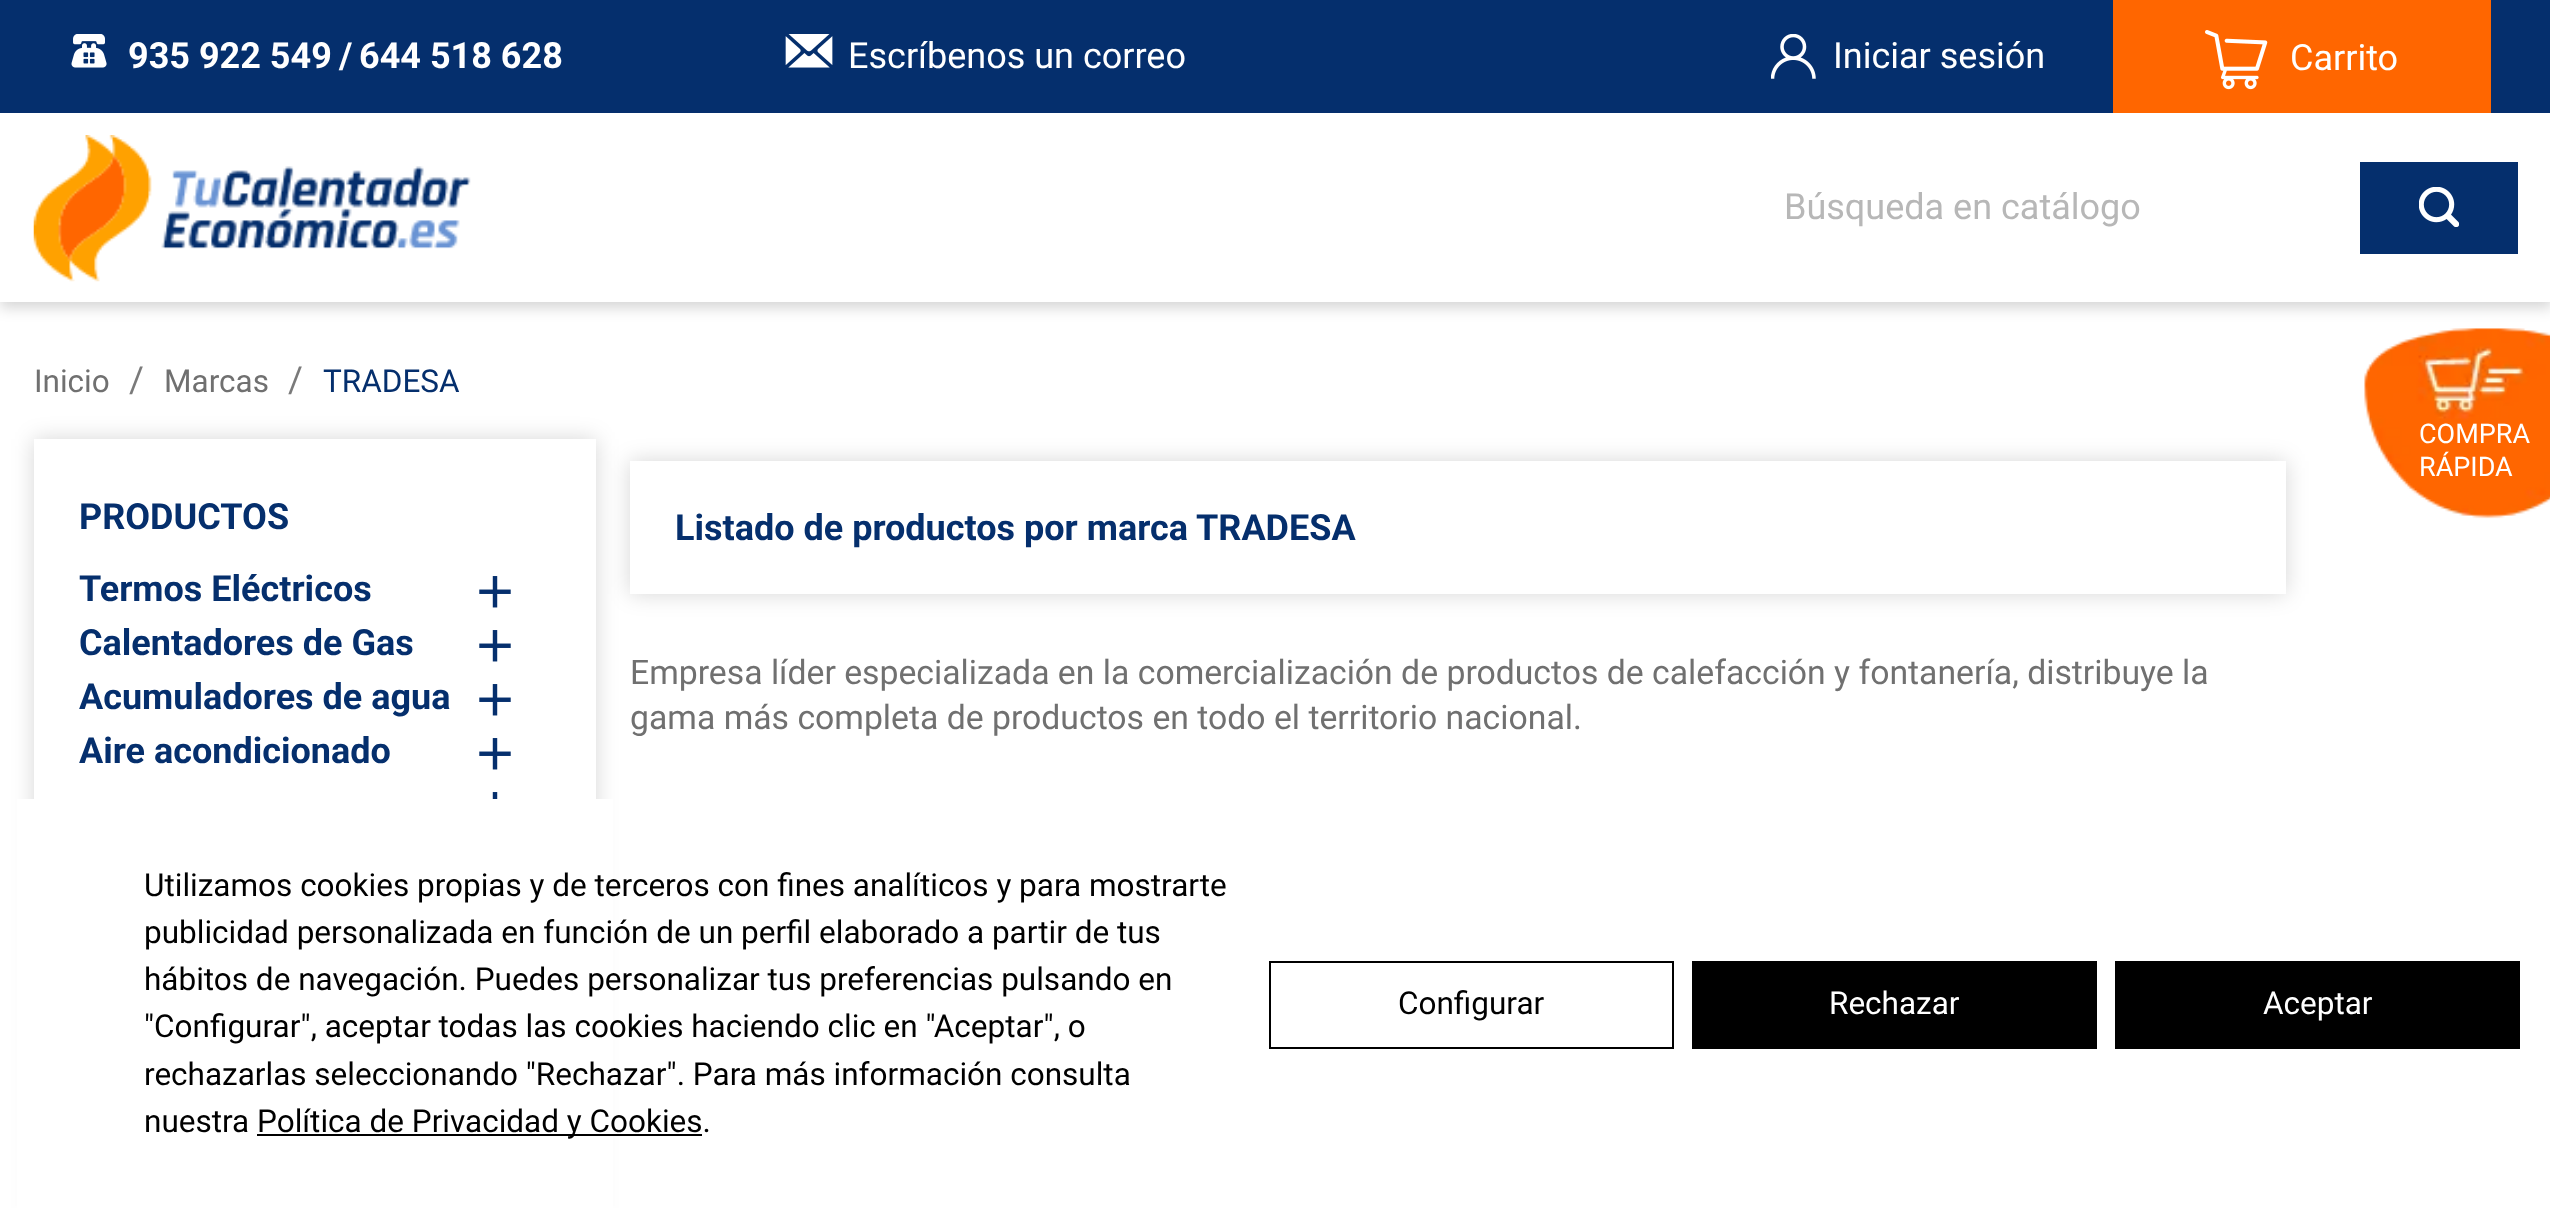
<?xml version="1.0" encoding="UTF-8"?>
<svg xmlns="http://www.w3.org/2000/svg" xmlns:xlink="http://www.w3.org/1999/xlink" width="2550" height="1208">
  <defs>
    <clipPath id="clip1"><path d="M 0 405 h 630 v 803 h -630 z m 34 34 h 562 v 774 h -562 z" clip-rule="evenodd" /></clipPath>
    <clipPath id="clip2"><path d="M 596 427 h 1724 v 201 h -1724 z m 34 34 h 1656 v 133 h -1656 z" clip-rule="evenodd" /></clipPath>
  </defs>
  <rect width="100%" height="100%" fill="#ffffff" />
  <rect y="7" width="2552" height="301" fill="#000000" fill-opacity="0.16" filter="blur(7px)" />
  <rect y="113" width="2550" height="189" fill="#ffffff" />
  <rect width="2550" height="113" fill="#052f6d" />
  <image x="71" y="34" width="36" height="34" xlink:href="image1.png" />
  <image x="785" y="34" width="48" height="34" xlink:href="image2.png" />
  <image x="1771" y="34" width="45" height="45" xlink:href="image3.png" />
  <rect x="2113" width="378" height="113" fill="#ff6600" />
  <image x="2205" y="30" width="63" height="60" xlink:href="image4.png" />
  <image x="33" y="135" width="438" height="147" xlink:href="image5.png" />
  <rect x="2360" y="162" width="158" height="92" fill="#052f6d" />
  <image x="2419" y="187" width="40" height="40" xlink:href="image6.png" />
  <image x="2364" y="328" width="186" height="191" xlink:href="image7.png" />
  <g clip-path="url(#clip1)">
    <rect x="34" y="439" width="562" height="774" fill="#000000" fill-opacity="0.16" filter="blur(11px)" />
  </g>
  <image x="479" y="576" width="32" height="32" xlink:href="image8.png" />
  <image x="479" y="630" width="32" height="32" xlink:href="image8.png" />
  <image x="479" y="684" width="32" height="32" xlink:href="image8.png" />
  <image x="479" y="738" width="32" height="32" xlink:href="image8.png" />
  <image x="492" y="792" width="6" height="7" xlink:href="image9.png" />
  <g clip-path="url(#clip2)">
    <rect x="630" y="461" width="1656" height="133" fill="#000000" fill-opacity="0.16" filter="blur(11px)" />
  </g>
  <rect x="17" y="799" width="596" height="409" fill="#ffffff" />
  <rect x="257" y="1134" width="445" height="2" fill="#000000" />
  <rect x="1270" y="962" width="403" height="86" fill="none" stroke="#000000" stroke-width="2" />
  <rect x="1692" y="961" width="405" height="88" fill="#000000" />
  <rect x="2115" y="961" width="405" height="88" fill="#000000" />
  <text x="128" y="68" style="font-family: Roboto; font-size: 36px; font-weight: bold; fill: #ffffff">935 922 549</text>
  <text x="339" y="68" style="font-family: Roboto; font-size: 36px; font-weight: bold; fill: #ffffff">/</text>
  <text x="359" y="68" style="font-family: Roboto; font-size: 36px; font-weight: bold; fill: #ffffff">644 518 628</text>
  <text x="848" y="68" style="font-family: Roboto; font-size: 36px; fill: #ffffff">Escríbenos un correo</text>
  <text x="1833" y="68" style="font-family: Roboto; font-size: 36px; fill: #ffffff">Iniciar sesión</text>
  <text x="2290" y="70" style="font-family: Roboto; font-size: 36px; fill: #ffffff">Carrito</text>
  <text x="1784" y="219" style="font-family: Roboto; font-size: 36px; fill: #b7b7b7">Búsqueda en catálogo</text>
  <text x="2419" y="443" style="font-family: Roboto; font-size: 27px; fill: #ffffff">COMPRA</text>
  <text x="2419" y="476" style="font-family: Roboto; font-size: 27px; fill: #ffffff">RÁPIDA</text>
  <text x="34" y="392" style="font-family: Roboto; font-size: 31.5px; fill: #707070">Inicio</text>
  <text x="129" y="392" style="font-family: Roboto; font-size: 36px; fill: #7a7a7a">/</text>
  <text x="164" y="392" style="font-family: Roboto; font-size: 31.5px; fill: #707070">Marcas</text>
  <text x="288" y="392" style="font-family: Roboto; font-size: 36px; fill: #7a7a7a">/</text>
  <text x="323" y="392" style="font-family: Roboto; font-size: 31.5px; fill: #052f6d">TRADESA</text>
  <text x="79" y="529" style="font-family: Roboto; font-size: 36px; font-weight: bold; fill: #052f6d">PRODUCTOS</text>
  <text x="79" y="601" style="font-family: Roboto; font-size: 36px; font-weight: bold; fill: #052f6d">Termos Eléctricos</text>
  <text x="79" y="655" style="font-family: Roboto; font-size: 36px; font-weight: bold; fill: #052f6d">Calentadores de Gas</text>
  <text x="79" y="709" style="font-family: Roboto; font-size: 36px; font-weight: bold; fill: #052f6d">Acumuladores de agua</text>
  <text x="79" y="763" style="font-family: Roboto; font-size: 36px; font-weight: bold; fill: #052f6d">Aire acondicionado</text>
  <text x="675" y="540" style="font-family: Roboto; font-size: 36px; font-weight: bold; fill: #052f6d">Listado de productos por marca TRADESA</text>
  <text x="630" y="684" style="font-family: Roboto; font-size: 33.75px; fill: #707070">Empresa líder especializada en la comercialización de productos de calefacción y fontanería, distribuye la</text>
  <text x="630" y="729" style="font-family: Roboto; font-size: 33.75px; fill: #707070">gama más completa de productos en todo el territorio nacional.</text>
  <text x="144" y="896" style="font-family: Roboto; font-size: 31.5px; fill: #000000">Utilizamos cookies propias y de terceros con fines analíticos y para mostrarte</text>
  <text x="144" y="943" style="font-family: Roboto; font-size: 31.5px; fill: #000000">publicidad personalizada en función de un perfil elaborado a partir de tus</text>
  <text x="144" y="990" style="font-family: Roboto; font-size: 31.5px; fill: #000000">hábitos de navegación. Puedes personalizar tus preferencias pulsando en</text>
  <text x="144" y="1037" style="font-family: Roboto; font-size: 31.5px; fill: #000000">"Configurar", aceptar todas las cookies haciendo clic en "Aceptar", o</text>
  <text x="144" y="1085" style="font-family: Roboto; font-size: 31.5px; fill: #000000">rechazarlas seleccionando "Rechazar". Para más información consulta</text>
  <text x="144" y="1132" style="font-family: Roboto; font-size: 31.5px; fill: #000000">nuestra</text>
  <text x="257" y="1132" style="font-family: Roboto; font-size: 31.5px; fill: #000000">Política de Privacidad y Cookies.</text>
  <text x="1398" y="1014" style="font-family: Roboto; font-size: 31.5px; fill: #000000">Configurar</text>
  <text x="1829" y="1014" style="font-family: Roboto; font-size: 31.5px; fill: #ffffff">Rechazar</text>
  <text x="2263" y="1014" style="font-family: Roboto; font-size: 31.5px; fill: #ffffff">Aceptar</text>
</svg>
